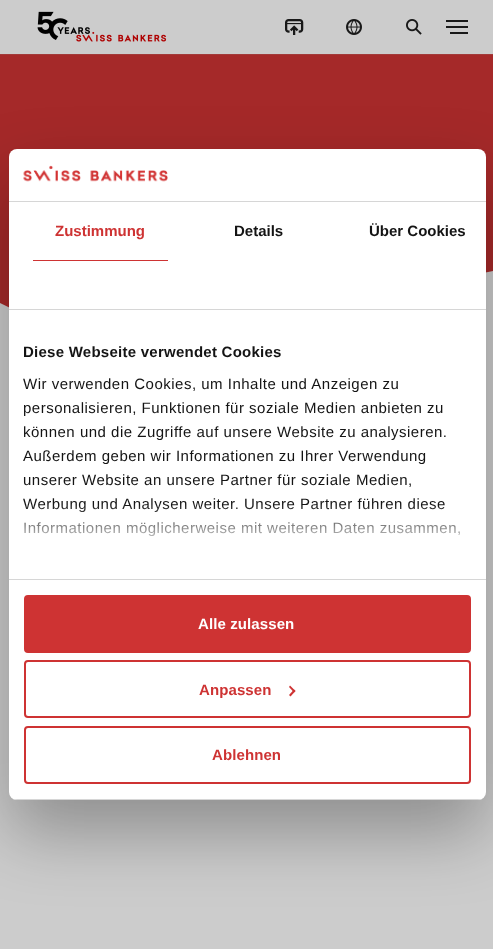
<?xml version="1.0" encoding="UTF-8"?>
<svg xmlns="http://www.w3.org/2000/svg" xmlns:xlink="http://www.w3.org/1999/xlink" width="493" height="949">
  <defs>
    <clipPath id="clip1"><rect x="9" y="149" width="477" height="651" rx="8" /></clipPath>
    <linearGradient id="g1" gradientUnits="userSpaceOnUse" x1="241" y1="579" x2="241" y2="504"><stop offset="0" stop-color="#ffffff" /><stop offset="0.5" stop-color="#ffffff" stop-opacity="0.8" /><stop offset="1" stop-color="#ffffff" stop-opacity="0" /></linearGradient>
  </defs>
  <rect width="100%" height="100%" fill="#a52929" />
  <rect y="54" width="493" height="1" fill="#a23a39" />
  <rect width="493" height="54" fill="#cccccc" />
  <image x="37" y="11" width="130" height="31" xlink:href="image1.png" />
  <image x="285" y="19" width="19" height="16" xlink:href="image2.png" />
  <image x="346" y="19" width="16" height="16" xlink:href="image3.png" />
  <image x="406" y="19" width="16" height="16" xlink:href="image4.png" />
  <rect x="446" y="20" width="22" height="2" fill="#181818" />
  <rect x="446" y="26" width="22" height="2" fill="#181818" />
  <rect x="450" y="32" width="18" height="2" fill="#181818" />
  <path d="M 99 351 l -99 -48 v 48 h 493 v -80 z" fill="#cccccc" />
  <rect y="350" width="493" height="599" fill="#cccccc" />
  <rect x="9" y="181" width="477" height="651" rx="8" fill="#000000" fill-opacity="0.3" filter="blur(34px)" />
  <rect x="9" y="149" width="477" height="651" rx="8" fill="#ffffff" />
  <rect x="9" y="201" width="477" height="1" fill="#d6d6d6" />
  <image x="23" y="165" width="145" height="17" xlink:href="image5.png" />
  <rect x="9" y="309" width="477" height="1" fill="#d6d6d6" />
  <rect x="33" y="260" width="135" height="1" fill="#ce3333" />
  <rect x="9" y="579" width="477" height="1" fill="#d6d6d6" />
  <g clip-path="url(#clip1)">
    <rect x="9" y="799" width="477" height="1" fill="#d6d6d6" />
  </g>
  <rect x="25" y="596" width="445" height="56" rx="3" fill="#ce3333" stroke="#ce3333" stroke-width="2" />
  <rect x="25" y="661" width="445" height="56" rx="3" fill="none" stroke="#ce3333" stroke-width="2" />
  <path d="M 290 685.5 l 5.5 5.5 l -1.5 1.5 l -5 -5.5 z" fill="#ce3333" />
  <path d="M 294 689.5 l 1.5 1.5 l -5 5.5 l -1.5 -1.5 z" fill="#ce3333" />
  <rect x="25" y="727" width="445" height="56" rx="3" fill="none" stroke="#ce3333" stroke-width="2" />
  <text x="55" y="236" style="font-family: Liberation Sans; font-size: 15px; font-weight: bold; fill: #ce3333">Zustimmung</text>
  <text x="234" y="236" style="font-family: Liberation Sans; font-size: 15px; font-weight: bold; fill: #141414">Details</text>
  <text x="369" y="236" style="font-family: Liberation Sans; font-size: 15px; font-weight: bold; fill: #141414">Über Cookies</text>
  <text x="23" y="357" style="font-family: Liberation Sans; font-size: 15px; font-weight: bold; letter-spacing: 0.25px; fill: #141414">Diese Webseite verwendet Cookies</text>
  <text x="23" y="389" style="font-family: Liberation Sans; font-size: 15px; letter-spacing: 0.5px; fill: #141414">Wir verwenden Cookies, um Inhalte und Anzeigen zu</text>
  <text x="23" y="413" style="font-family: Liberation Sans; font-size: 15px; letter-spacing: 0.5px; fill: #141414">personalisieren, Funktionen für soziale Medien anbieten zu</text>
  <text x="23" y="437" style="font-family: Liberation Sans; font-size: 15px; letter-spacing: 0.5px; fill: #141414">können und die Zugriffe auf unsere Website zu analysieren.</text>
  <text x="23" y="461" style="font-family: Liberation Sans; font-size: 15px; letter-spacing: 0.5px; fill: #141414">Außerdem geben wir Informationen zu Ihrer Verwendung</text>
  <text x="23" y="485" style="font-family: Liberation Sans; font-size: 15px; letter-spacing: 0.5px; fill: #141414">unserer Website an unsere Partner für soziale Medien,</text>
  <text x="23" y="509" style="font-family: Liberation Sans; font-size: 15px; letter-spacing: 0.5px; fill: #141414">Werbung und Analysen weiter. Unsere Partner führen diese</text>
  <text x="23" y="533" style="font-family: Liberation Sans; font-size: 15px; letter-spacing: 0.5px; fill: #141414">Informationen möglicherweise mit weiteren Daten zusammen,</text>
  <rect x="24" y="505" width="436" height="32" fill="url(#g1)" />
  <text x="198" y="629" style="font-family: Liberation Sans; font-size: 15px; font-weight: bold; letter-spacing: 0.1px; fill: #ffffff">Alle zulassen</text>
  <text x="199" y="695" style="font-family: Liberation Sans; font-size: 15px; font-weight: bold; letter-spacing: 0.1px; fill: #ce3333">Anpassen</text>
  <text x="212" y="760" style="font-family: Liberation Sans; font-size: 15px; font-weight: bold; letter-spacing: 0.1px; fill: #ce3333">Ablehnen</text>
</svg>
